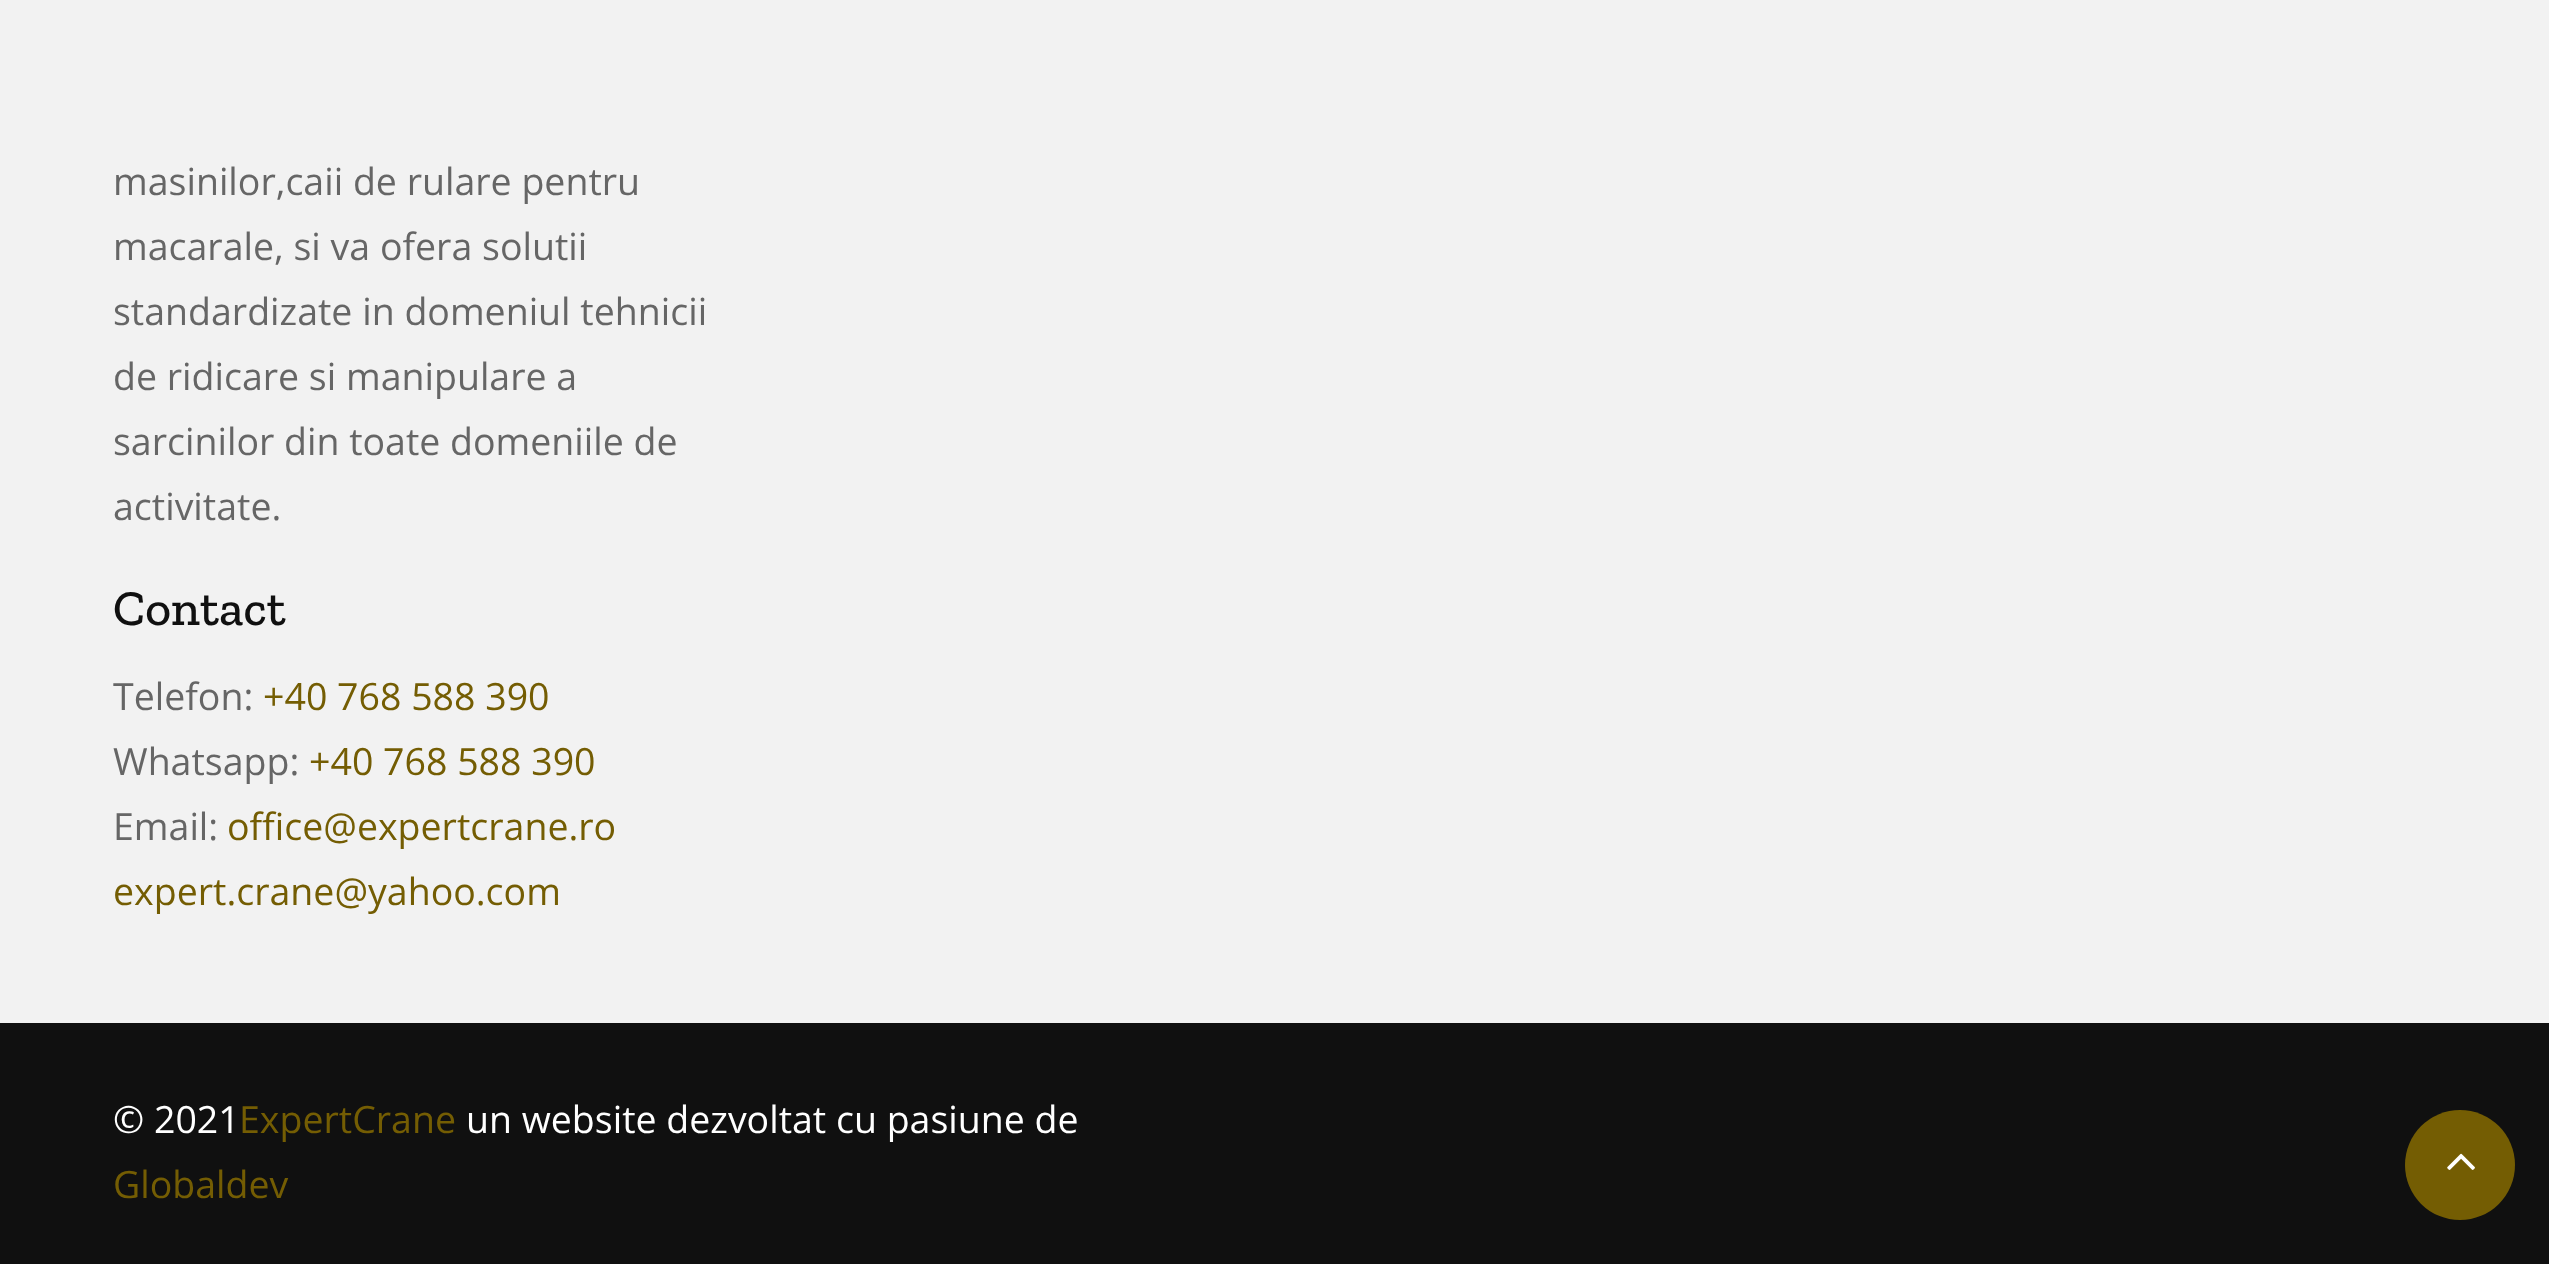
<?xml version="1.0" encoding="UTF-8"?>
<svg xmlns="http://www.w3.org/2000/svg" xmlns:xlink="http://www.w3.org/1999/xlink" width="2549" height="1264">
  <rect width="100%" height="100%" fill="#f2f2f2" />
  <rect y="1023" width="2549" height="241" fill="#101010" />
  <circle cx="2460" cy="1165" r="55" fill="#745d03" />
  <image x="2447" y="1153" width="28" height="17" xlink:href="image1.png" />
  <text x="113" y="195" style="font-family: Open Sans; font-size: 37.5px; fill: #666666">masinilor,caii de rulare pentru</text>
  <text x="113" y="260" style="font-family: Open Sans; font-size: 37.5px; fill: #666666">macarale, si va ofera solutii</text>
  <text x="113" y="325" style="font-family: Open Sans; font-size: 37.5px; fill: #666666">standardizate in domeniul tehnicii</text>
  <text x="113" y="390" style="font-family: Open Sans; font-size: 37.5px; fill: #666666">de ridicare si manipulare a</text>
  <text x="113" y="455" style="font-family: Open Sans; font-size: 37.5px; fill: #666666">sarcinilor din toate domeniile de</text>
  <text x="113" y="520" style="font-family: Open Sans; font-size: 37.5px; fill: #666666">activitate.</text>
  <text x="113" y="625" style="font-family: Zilla Slab; font-size: 50px; font-weight: 500; fill: #101010">Contact</text>
  <text x="113" y="710" style="font-family: Open Sans; font-size: 37.5px; fill: #666666">Telefon:</text>
  <text x="263" y="710" style="font-family: Open Sans; font-size: 37.5px; fill: #745d03">+40 768 588 390</text>
  <text x="113" y="775" style="font-family: Open Sans; font-size: 37.5px; fill: #666666">Whatsapp:</text>
  <text x="309" y="775" style="font-family: Open Sans; font-size: 37.5px; fill: #745d03">+40 768 588 390</text>
  <text x="113" y="840" style="font-family: Open Sans; font-size: 37.5px; fill: #666666">Email:</text>
  <text x="227" y="840" style="font-family: Open Sans; font-size: 37.5px; fill: #745d03">office@expertcrane.ro</text>
  <text x="113" y="905" style="font-family: Open Sans; font-size: 37.5px; fill: #745d03">expert.crane@yahoo.com</text>
  <text x="113" y="1133" style="font-family: Open Sans; font-size: 37.5px; fill: #ffffff">© 2021</text>
  <text x="239" y="1133" style="font-family: Open Sans; font-size: 37.5px; fill: #745d03">ExpertCrane</text>
  <text x="466" y="1133" style="font-family: Open Sans; font-size: 37.5px; fill: #ffffff">un website dezvoltat cu pasiune de</text>
  <text x="113" y="1198" style="font-family: Open Sans; font-size: 37.5px; fill: #745d03">Globaldev</text>
</svg>
